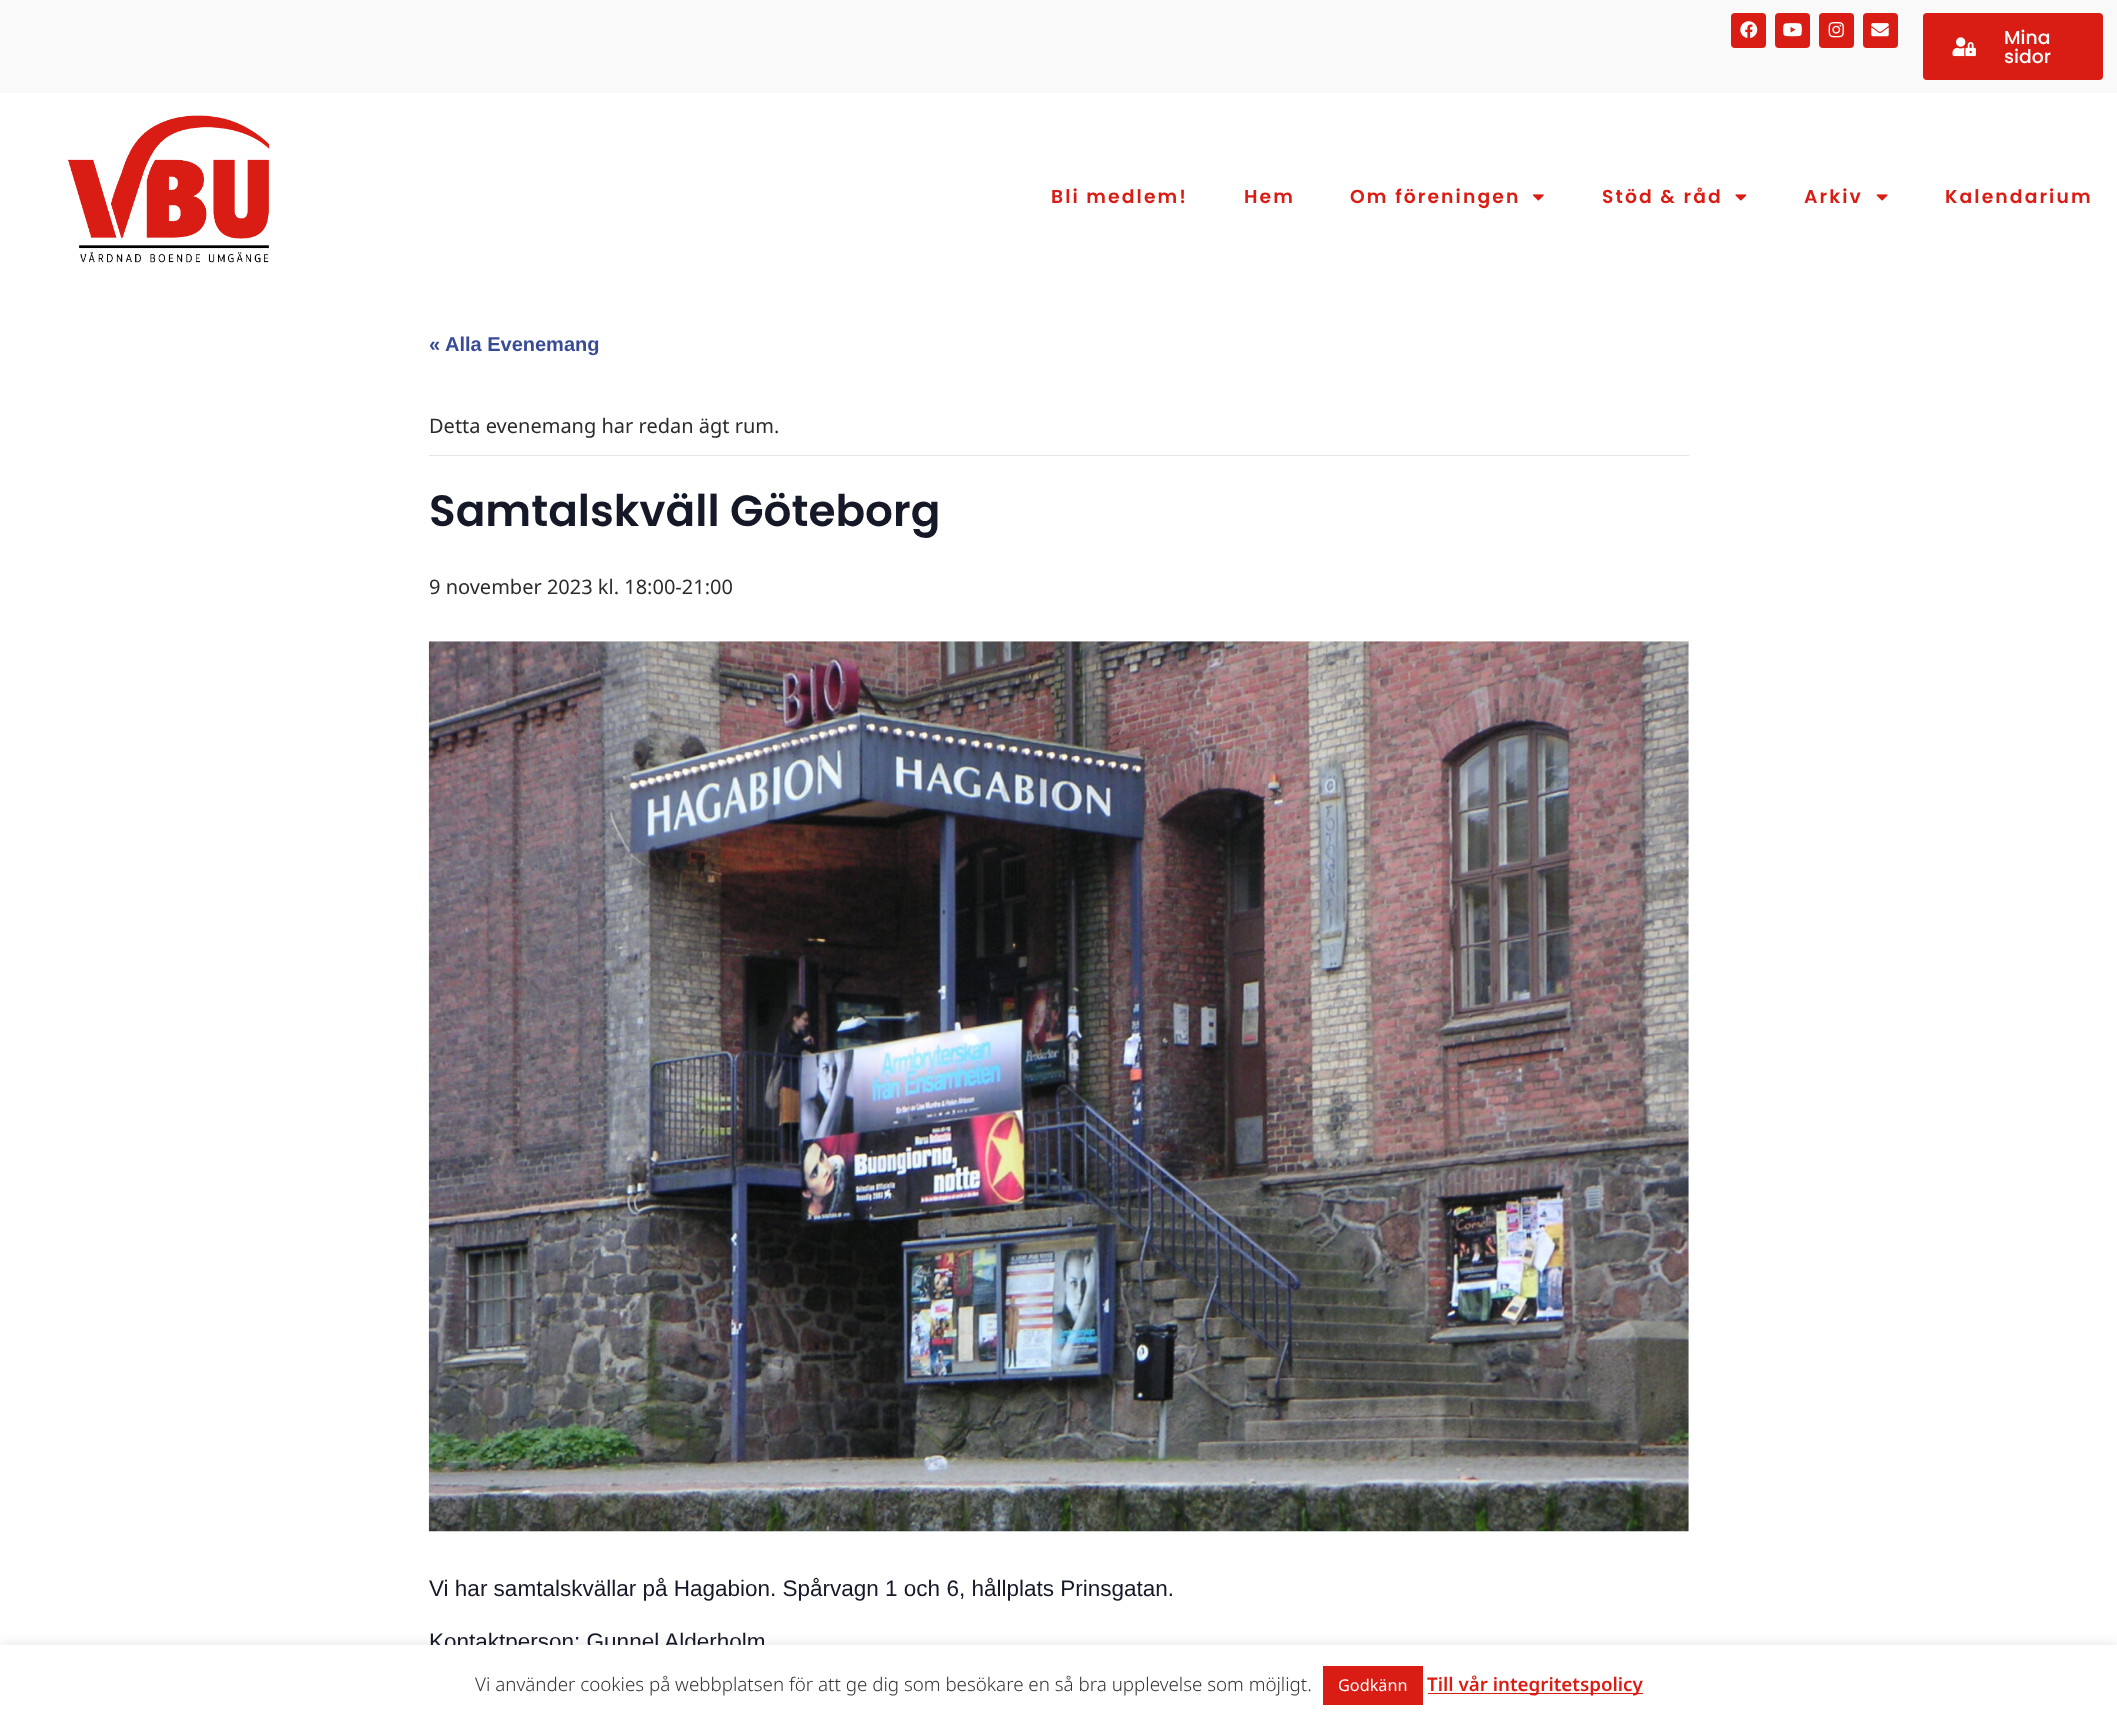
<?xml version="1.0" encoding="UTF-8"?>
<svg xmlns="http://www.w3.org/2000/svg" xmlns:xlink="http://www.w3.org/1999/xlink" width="2117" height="1719">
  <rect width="100%" height="100%" fill="#ffffff" />
  <rect width="2117" height="93" fill="#f9f9f9" />
  <rect x="1731" y="13" width="35" height="35" rx="4" fill="#d91d14" />
  <image x="1740" y="21" width="18" height="17" xlink:href="image1.png" />
  <rect x="1775" y="13" width="35" height="35" rx="4" fill="#d91d14" />
  <image x="1783" y="23" width="19" height="14" xlink:href="image2.png" />
  <rect x="1819" y="13" width="35" height="35" rx="4" fill="#d91d14" />
  <image x="1828" y="22" width="16" height="16" xlink:href="image3.png" />
  <rect x="1863" y="13" width="35" height="35" rx="4" fill="#d91d14" />
  <image x="1871" y="23" width="18" height="14" xlink:href="image4.png" />
  <rect x="1923" y="13" width="180" height="67" rx="4" fill="#d91d14" />
  <image x="1952" y="37" width="24" height="20" xlink:href="image5.png" />
  <image x="68" y="115" width="202" height="148" xlink:href="image6.png" />
  <image x="1532" y="194" width="12" height="7" xlink:href="image7.png" />
  <image x="1735" y="194" width="12" height="7" xlink:href="image8.png" />
  <image x="1876" y="194" width="12" height="7" xlink:href="image9.png" />
  <rect x="429" y="455" width="1260" height="1" fill="#e4e4e4" />
  <image x="428" y="641" width="1261" height="891" xlink:href="image10.png" />
  <rect y="1644" width="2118" height="75" fill="#acabab" fill-opacity="0.3" filter="blur(6px)" />
  <text x="2004" y="44" style="font-family: Poppins; font-size: 18.75px; font-weight: 500; fill: #ffffff">Mina</text>
  <text x="2004" y="63" style="font-family: Poppins; font-size: 18.75px; font-weight: 500; fill: #ffffff">sidor</text>
  <text x="1051" y="203" style="font-family: Poppins; font-size: 18.75px; font-weight: 600; letter-spacing: 2.1px; fill: #d91d14">Bli medlem!</text>
  <text x="1244" y="203" style="font-family: Poppins; font-size: 18.75px; font-weight: 600; letter-spacing: 2.1px; fill: #d91d14">Hem</text>
  <text x="1350" y="203" style="font-family: Poppins; font-size: 18.75px; font-weight: 600; letter-spacing: 2.1px; fill: #d91d14">Om föreningen</text>
  <text x="1602" y="203" style="font-family: Poppins; font-size: 18.75px; font-weight: 600; letter-spacing: 2.1px; fill: #d91d14">Stöd &amp; råd</text>
  <text x="1804" y="203" style="font-family: Poppins; font-size: 18.75px; font-weight: 600; letter-spacing: 2.1px; fill: #d91d14">Arkiv</text>
  <text x="1945" y="203" style="font-family: Poppins; font-size: 18.75px; font-weight: 600; letter-spacing: 2.1px; fill: #d91d14">Kalendarium</text>
  <text x="429" y="351" style="font-family: Liberation Sans; font-size: 20px; font-weight: bold; fill: #384c95">« Alla Evenemang</text>
  <text x="429" y="433" style="font-family: Noto Sans; font-size: 20px; fill: #2b2b2b">Detta evenemang har redan ägt rum.</text>
  <text x="429" y="526" style="font-family: Poppins; font-size: 43.75px; font-weight: 600; fill: #141827">Samtalskväll Göteborg</text>
  <text x="429" y="594" style="font-family: Noto Sans; font-size: 20px; fill: #2b2b2b">9 november 2023 kl. 18:00-21:00</text>
  <text x="429" y="1596" style="font-family: Liberation Sans; font-size: 22.5px; fill: #141827">Vi har samtalskvällar på Hagabion. Spårvagn 1 och 6, hållplats Prinsgatan.</text>
  <text x="429" y="1649" style="font-family: Liberation Sans; font-size: 22.5px; fill: #141827">Kontaktperson: Gunnel Alderholm</text>
  <rect y="1645" width="2117" height="74" fill="#ffffff" />
  <text x="475" y="1691" style="font-family: Noto Sans; font-size: 18.75px; font-weight: 300; fill: #333333">Vi använder cookies på webbplatsen för att ge dig som besökare en så bra upplevelse som möjligt.</text>
  <rect x="1323" y="1666" width="100" height="39" fill="#d91d14" />
  <text x="1338" y="1691" style="font-family: Noto Sans; font-size: 16.25px; fill: #ffffff">Godkänn</text>
  <rect x="1428" y="1693" width="215" height="1" fill="#d91d14" />
  <text x="1427" y="1691" style="font-family: Noto Sans; font-size: 18.75px; font-weight: 600; fill: #d91d14">Till vår integritetspolicy</text>
</svg>
